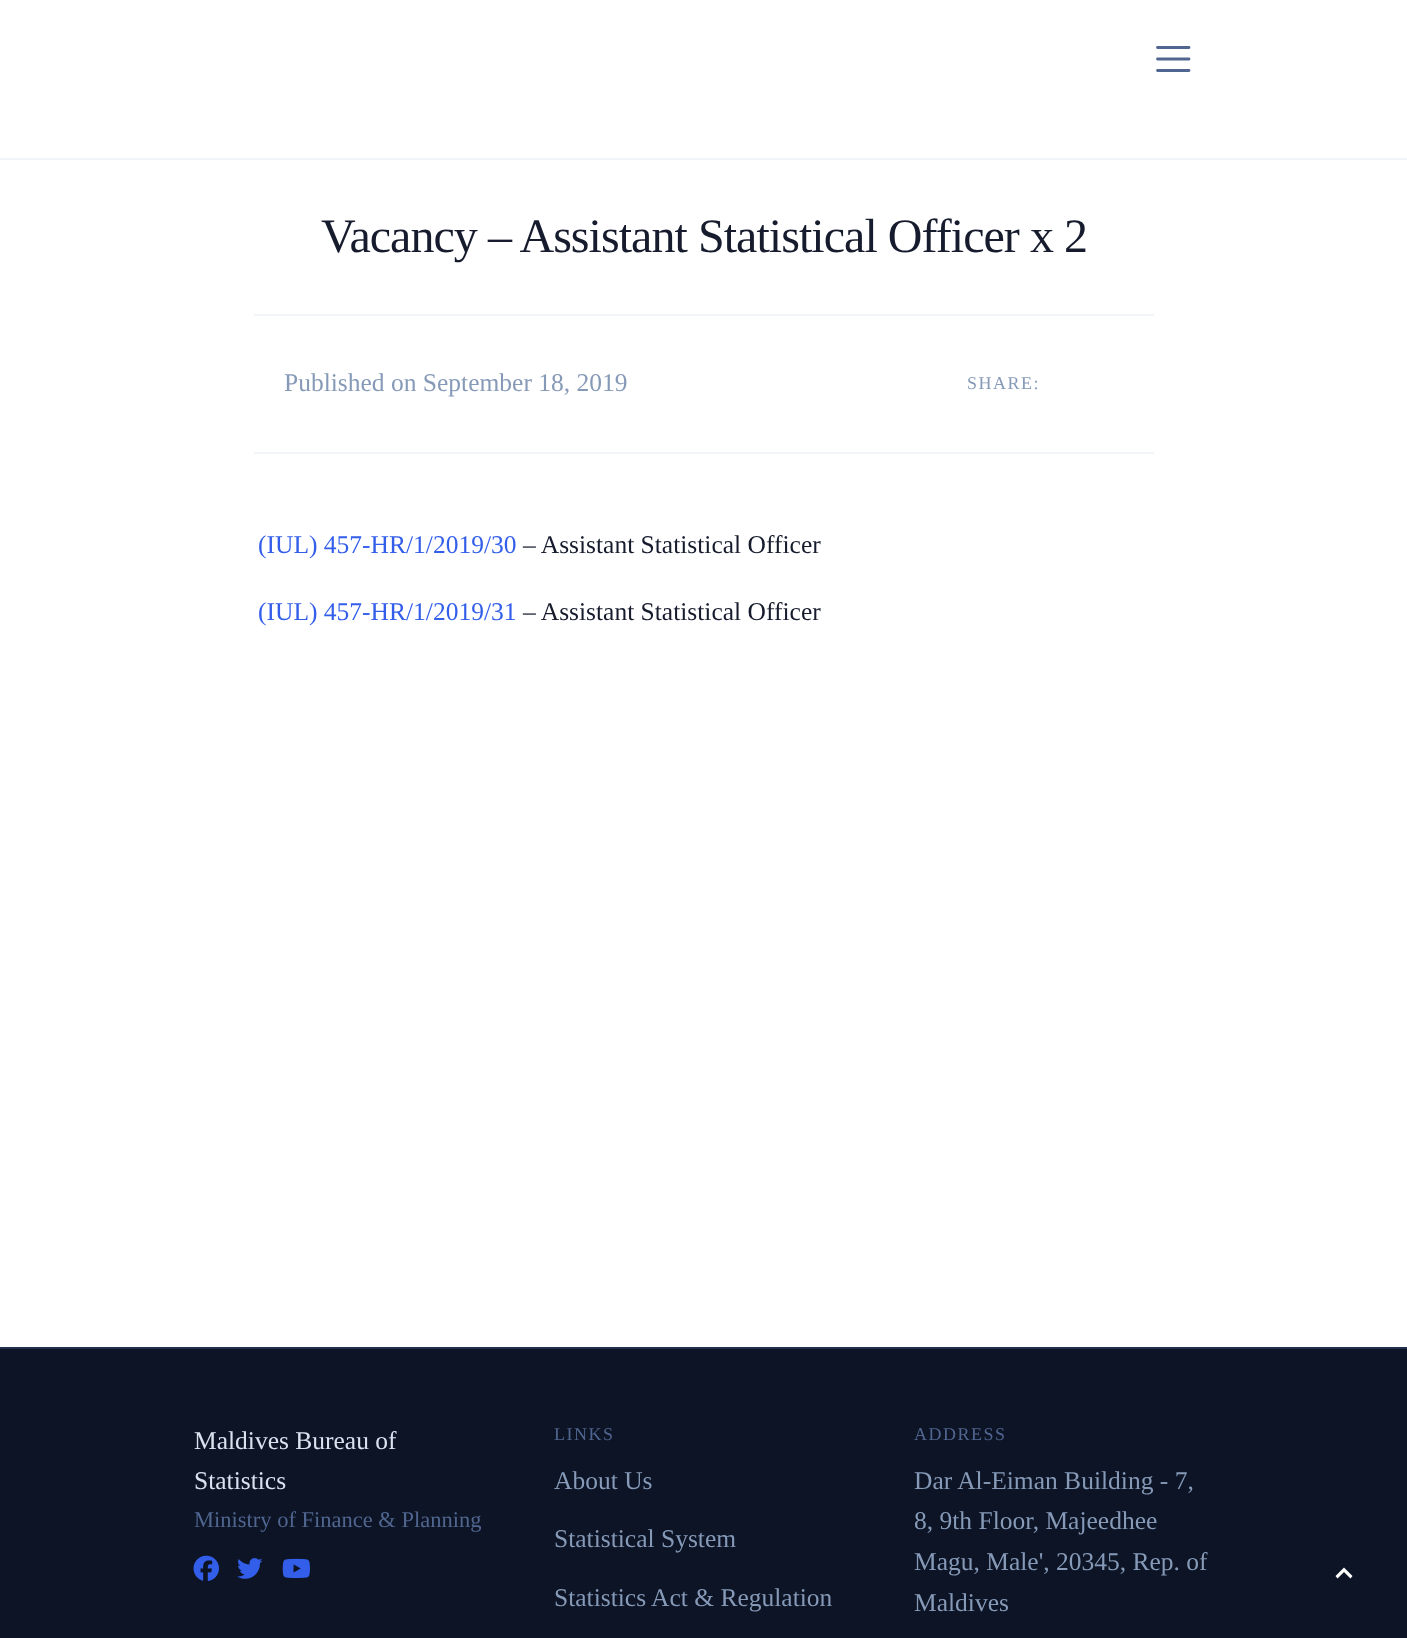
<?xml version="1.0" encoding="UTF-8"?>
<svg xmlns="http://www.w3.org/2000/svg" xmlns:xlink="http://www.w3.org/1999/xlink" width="1407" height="1638">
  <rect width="100%" height="100%" fill="#ffffff" />
  <rect y="158" width="1407" height="2" fill="#f1f4f8" />
  <path d="M 1157.5 47.5 h 31.5 m -31.5 11.5 h 31.5 m -31.5 11.5 h 31.5" fill="none" stroke="#506690" stroke-width="2.8" stroke-linecap="round" />
  <rect x="254" y="314" width="900" height="2" fill="#f1f4f8" />
  <rect x="254" y="452" width="900" height="2" fill="#f1f4f8" />
  <rect y="1349" width="1407" height="289" fill="#0c1425" />
  <rect y="1347" width="1407" height="2" fill="#22304d" />
  <image x="193" y="1555" width="26" height="26" xlink:href="image1.png" />
  <image x="237" y="1558" width="26" height="21" xlink:href="image2.png" />
  <image x="282" y="1558" width="28" height="20" xlink:href="image3.png" />
  <path d="M 1335.5 1576 l 2 2.5 l 6.5 -6.5 l 6.5 6.5 l 2 -2.5 l -8.5 -8.5 z" fill="#ffffff" />
  <text x="321" y="252" style="font-family: Liberation Serif; font-size: 48px; letter-spacing: -0.95px; fill: #161c2d">Vacancy – Assistant Statistical Officer x 2</text>
  <text x="284" y="391" style="font-family: Liberation Serif; font-size: 25.5px; fill: #869ab8">Published on September 18, 2019</text>
  <text x="967" y="389" style="font-family: Liberation Serif; font-size: 18px; letter-spacing: 1.5px; fill: #869ab8">SHARE:</text>
  <text x="258" y="553" style="font-family: Liberation Serif; font-size: 25.5px; fill: #335eea">(IUL) 457-HR/1/2019/30</text>
  <text x="523" y="553" style="font-family: Liberation Serif; font-size: 25.5px; fill: #161c2d">– Assistant Statistical Officer</text>
  <text x="258" y="620" style="font-family: Liberation Serif; font-size: 25.5px; fill: #335eea">(IUL) 457-HR/1/2019/31</text>
  <text x="523" y="620" style="font-family: Liberation Serif; font-size: 25.5px; fill: #161c2d">– Assistant Statistical Officer</text>
  <text x="194" y="1449" style="font-family: Liberation Serif; font-size: 25.5px; fill: #d9e2ef">Maldives Bureau of</text>
  <text x="194" y="1489" style="font-family: Liberation Serif; font-size: 25.5px; fill: #d9e2ef">Statistics</text>
  <text x="194" y="1527" style="font-family: Liberation Serif; font-size: 22.5px; fill: #506690">Ministry of Finance &amp; Planning</text>
  <text x="554" y="1440" style="font-family: Liberation Serif; font-size: 18px; letter-spacing: 1.5px; fill: #506690">LINKS</text>
  <text x="554" y="1489" style="font-family: Liberation Serif; font-size: 25.5px; fill: #869ab8">About Us</text>
  <text x="554" y="1547" style="font-family: Liberation Serif; font-size: 25.5px; fill: #869ab8">Statistical System</text>
  <text x="554" y="1606" style="font-family: Liberation Serif; font-size: 25.5px; fill: #869ab8">Statistics Act &amp; Regulation</text>
  <text x="914" y="1440" style="font-family: Liberation Serif; font-size: 18px; letter-spacing: 1.5px; fill: #506690">ADDRESS</text>
  <text x="914" y="1489" style="font-family: Liberation Serif; font-size: 25.5px; fill: #869ab8">Dar Al-Eiman Building - 7,</text>
  <text x="914" y="1529" style="font-family: Liberation Serif; font-size: 25.5px; fill: #869ab8">8, 9th Floor, Majeedhee</text>
  <text x="914" y="1570" style="font-family: Liberation Serif; font-size: 25.5px; fill: #869ab8">Magu, Male', 20345, Rep. of</text>
  <text x="914" y="1611" style="font-family: Liberation Serif; font-size: 25.5px; fill: #869ab8">Maldives</text>
</svg>
